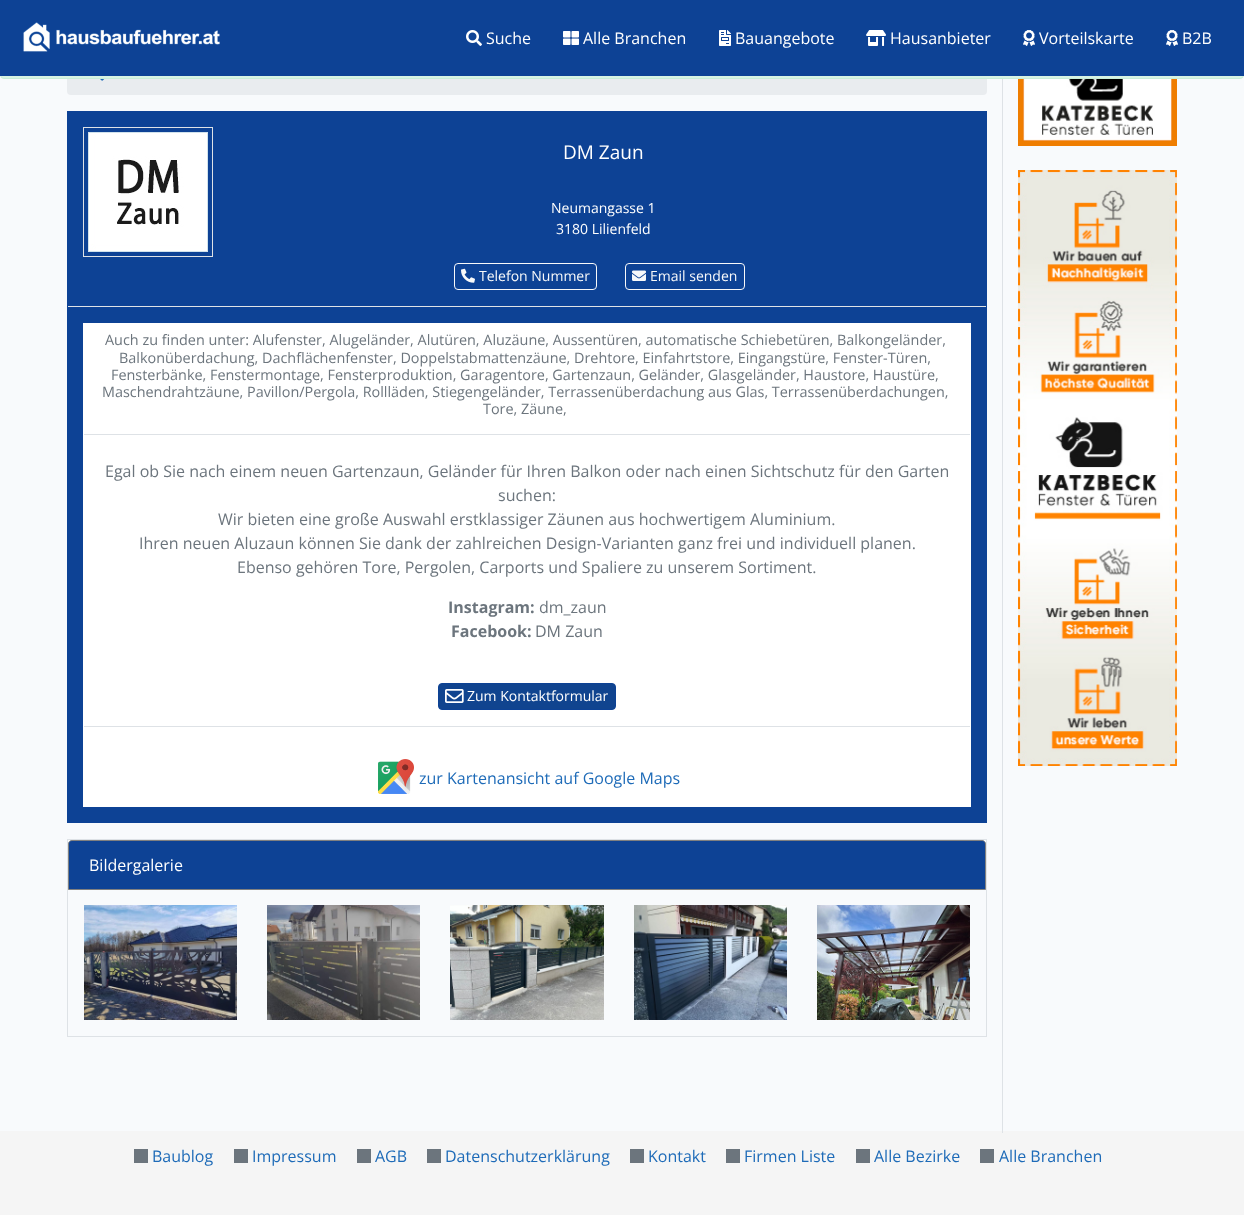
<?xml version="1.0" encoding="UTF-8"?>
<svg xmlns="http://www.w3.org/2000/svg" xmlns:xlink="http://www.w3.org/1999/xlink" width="1244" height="1215">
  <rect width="100%" height="100%" fill="#f8fafc" />
  <rect x="67" y="47" width="920" height="48" rx="4" fill="#e9ecef" />
  <rect x="0.5" y="23.5" width="1243" height="55" rx="3.5" fill="#d7f3e3" stroke="#c7eed8" />
  <rect width="1244" height="76" fill="#0d4295" />
  <image x="23" y="22" width="197" height="30" xlink:href="image1.png" />
  <image x="466" y="30" width="16" height="16" xlink:href="image2.png" />
  <image x="563" y="31" width="16" height="14" xlink:href="image3.png" />
  <image x="719" y="30" width="12" height="16" xlink:href="image4.png" />
  <image x="866" y="30" width="20" height="16" xlink:href="image5.png" />
  <image x="1023" y="30" width="12" height="16" xlink:href="image6.png" />
  <image x="1166" y="30" width="12" height="16" xlink:href="image6.png" />
  <image x="100" y="79" width="5" height="2" xlink:href="image7.png" />
  <rect x="67" y="111" width="920" height="712" fill="#0d4295" />
  <rect x="68" y="306" width="918" height="1" fill="#dee2e6" />
  <rect x="83.5" y="127.5" width="129" height="129" fill="none" stroke="#dee2e6" />
  <image x="88" y="132" width="120" height="120" xlink:href="image8.png" />
  <rect x="454.5" y="263.5" width="142" height="26" rx="3.5" fill="none" stroke="#f8f9fa" />
  <image x="461" y="268" width="14" height="15" xlink:href="image9.png" />
  <rect x="625.5" y="263.5" width="119" height="26" rx="3.5" fill="none" stroke="#f8f9fa" />
  <image x="632" y="270" width="14" height="11" xlink:href="image10.png" />
  <rect x="83" y="323" width="888" height="484" fill="#ffffff" />
  <rect x="84" y="434" width="886" height="1" fill="#dee2e6" />
  <rect x="438.5" y="683.5" width="177" height="26" rx="3.5" fill="#10448f" stroke="#0d4295" />
  <image x="445" y="689" width="19" height="14" xlink:href="image11.png" />
  <rect x="84" y="726" width="886" height="1" fill="#dee2e6" />
  <image x="378" y="759" width="36" height="35" xlink:href="image12.png" />
  <rect x="67.5" y="839.5" width="919" height="197" fill="none" stroke="#dee2e6" />
  <path d="M 72 840.5 h 910 c 2 0 3.5 1.5 3.5 3.5 v 45.5 h -917 v -45.5 c 0 -2 1.5 -3.5 3.5 -3.5 z" fill="#0d4295" stroke="#808080" />
  <image x="84" y="905" width="153" height="115" xlink:href="image13.png" />
  <image x="267" y="905" width="153" height="115" xlink:href="image14.png" />
  <image x="450" y="905" width="154" height="115" xlink:href="image15.png" />
  <image x="634" y="905" width="153" height="115" xlink:href="image16.png" />
  <image x="817" y="905" width="153" height="115" xlink:href="image17.png" />
  <rect y="1131" width="1244" height="84" fill="#f5f5f5" />
  <rect x="1002" y="79" width="1" height="1054" fill="#dee2e6" />
  <image x="1018" y="79" width="159" height="67" xlink:href="image18.png" />
  <image x="1018" y="170" width="159" height="596" xlink:href="image19.png" />
  <rect x="134" y="1149" width="14" height="14" fill="#6c757d" />
  <rect x="234" y="1149" width="14" height="14" fill="#6c757d" />
  <rect x="357" y="1149" width="14" height="14" fill="#6c757d" />
  <rect x="427" y="1149" width="14" height="14" fill="#6c757d" />
  <rect x="630" y="1149" width="14" height="14" fill="#6c757d" />
  <rect x="726" y="1149" width="14" height="14" fill="#6c757d" />
  <rect x="856" y="1149" width="14" height="14" fill="#6c757d" />
  <rect x="980" y="1149" width="14" height="14" fill="#6c757d" />
  <text x="486" y="44" style="font-family: Open Sans; font-size: 16px; fill: #ffffff">Suche</text>
  <text x="583" y="44" style="font-family: Open Sans; font-size: 16px; fill: #ffffff">Alle Branchen</text>
  <text x="735" y="44" style="font-family: Open Sans; font-size: 16px; fill: #ffffff">Bauangebote</text>
  <text x="890" y="44" style="font-family: Open Sans; font-size: 16px; fill: #ffffff">Hausanbieter</text>
  <text x="1039" y="44" style="font-family: Open Sans; font-size: 16px; fill: #ffffff">Vorteilskarte</text>
  <text x="1182" y="44" style="font-family: Open Sans; font-size: 16px; fill: #ffffff">B2B</text>
  <text x="563" y="159" style="font-family: Open Sans; font-size: 19px; fill: #ffffff">DM Zaun</text>
  <text x="551" y="213" style="font-family: Open Sans; font-size: 14px; fill: #ffffff">Neumangasse 1</text>
  <text x="556" y="234" style="font-family: Open Sans; font-size: 14px; fill: #ffffff">3180 Lilienfeld</text>
  <text x="479" y="281" style="font-family: Open Sans; font-size: 14px; fill: #f8f9fa">Telefon Nummer</text>
  <text x="650" y="281" style="font-family: Open Sans; font-size: 14px; fill: #f8f9fa">Email senden</text>
  <text x="105" y="345" style="font-family: Open Sans; font-size: 14.4px; fill: #6c757d">Auch zu finden unter: Alufenster, Alugeländer, Alutüren, Aluzäune, Aussentüren, automatische Schiebetüren, Balkongeländer,</text>
  <text x="119" y="363" style="font-family: Open Sans; font-size: 14.4px; fill: #6c757d">Balkonüberdachung, Dachflächenfenster, Doppelstabmattenzäune, Drehtore, Einfahrtstore, Eingangstüre, Fenster-Türen,</text>
  <text x="111" y="380" style="font-family: Open Sans; font-size: 14.4px; fill: #6c757d">Fensterbänke, Fenstermontage, Fensterproduktion, Garagentore, Gartenzaun, Geländer, Glasgeländer, Haustore, Haustüre,</text>
  <text x="102" y="397" style="font-family: Open Sans; font-size: 14.4px; fill: #6c757d">Maschendrahtzäune, Pavillon/Pergola, Rollläden, Stiegengeländer, Terrassenüberdachung aus Glas, Terrassenüberdachungen,</text>
  <text x="483" y="414" style="font-family: Open Sans; font-size: 14.4px; fill: #6c757d">Tore, Zäune,</text>
  <text x="105" y="477" style="font-family: Open Sans; font-size: 16px; fill: #6c757d">Egal ob Sie nach einem neuen Gartenzaun, Geländer für Ihren Balkon oder nach einen Sichtschutz für den Garten</text>
  <text x="498" y="501" style="font-family: Open Sans; font-size: 16px; fill: #6c757d">suchen:</text>
  <text x="218" y="525" style="font-family: Open Sans; font-size: 16px; fill: #6c757d">Wir bieten eine große Auswahl erstklassiger Zäunen aus hochwertigem Aluminium.</text>
  <text x="139" y="549" style="font-family: Open Sans; font-size: 16px; fill: #6c757d">Ihren neuen Aluzaun können Sie dank der zahlreichen Design-Varianten ganz frei und individuell planen.</text>
  <text x="237" y="573" style="font-family: Open Sans; font-size: 16px; fill: #6c757d">Ebenso gehören Tore, Pergolen, Carports und Spaliere zu unserem Sortiment.</text>
  <text x="448" y="613" style="font-family: Open Sans; font-size: 16px; font-weight: bold; fill: #6c757d">Instagram:</text>
  <text x="539" y="613" style="font-family: Open Sans; font-size: 16px; fill: #6c757d">dm_zaun</text>
  <text x="451" y="637" style="font-family: Open Sans; font-size: 16px; font-weight: bold; fill: #6c757d">Facebook:</text>
  <text x="535" y="637" style="font-family: Open Sans; font-size: 16px; fill: #6c757d">DM Zaun</text>
  <text x="467" y="701" style="font-family: Open Sans; font-size: 14px; fill: #ffffff">Zum Kontaktformular</text>
  <text x="419" y="784" style="font-family: Open Sans; font-size: 16px; fill: #1e6bb8">zur Kartenansicht auf Google Maps</text>
  <text x="89" y="871" style="font-family: Open Sans; font-size: 16px; fill: #ffffff">Bildergalerie</text>
  <text x="152" y="1162" style="font-family: Open Sans; font-size: 16px; fill: #1e6bb8">Baublog</text>
  <text x="252" y="1162" style="font-family: Open Sans; font-size: 16px; fill: #1e6bb8">Impressum</text>
  <text x="375" y="1162" style="font-family: Open Sans; font-size: 16px; fill: #1e6bb8">AGB</text>
  <text x="445" y="1162" style="font-family: Open Sans; font-size: 16px; fill: #1e6bb8">Datenschutzerklärung</text>
  <text x="648" y="1162" style="font-family: Open Sans; font-size: 16px; fill: #1e6bb8">Kontakt</text>
  <text x="744" y="1162" style="font-family: Open Sans; font-size: 16px; fill: #1e6bb8">Firmen Liste</text>
  <text x="874" y="1162" style="font-family: Open Sans; font-size: 16px; fill: #1e6bb8">Alle Bezirke</text>
  <text x="999" y="1162" style="font-family: Open Sans; font-size: 16px; fill: #1e6bb8">Alle Branchen</text>
</svg>
